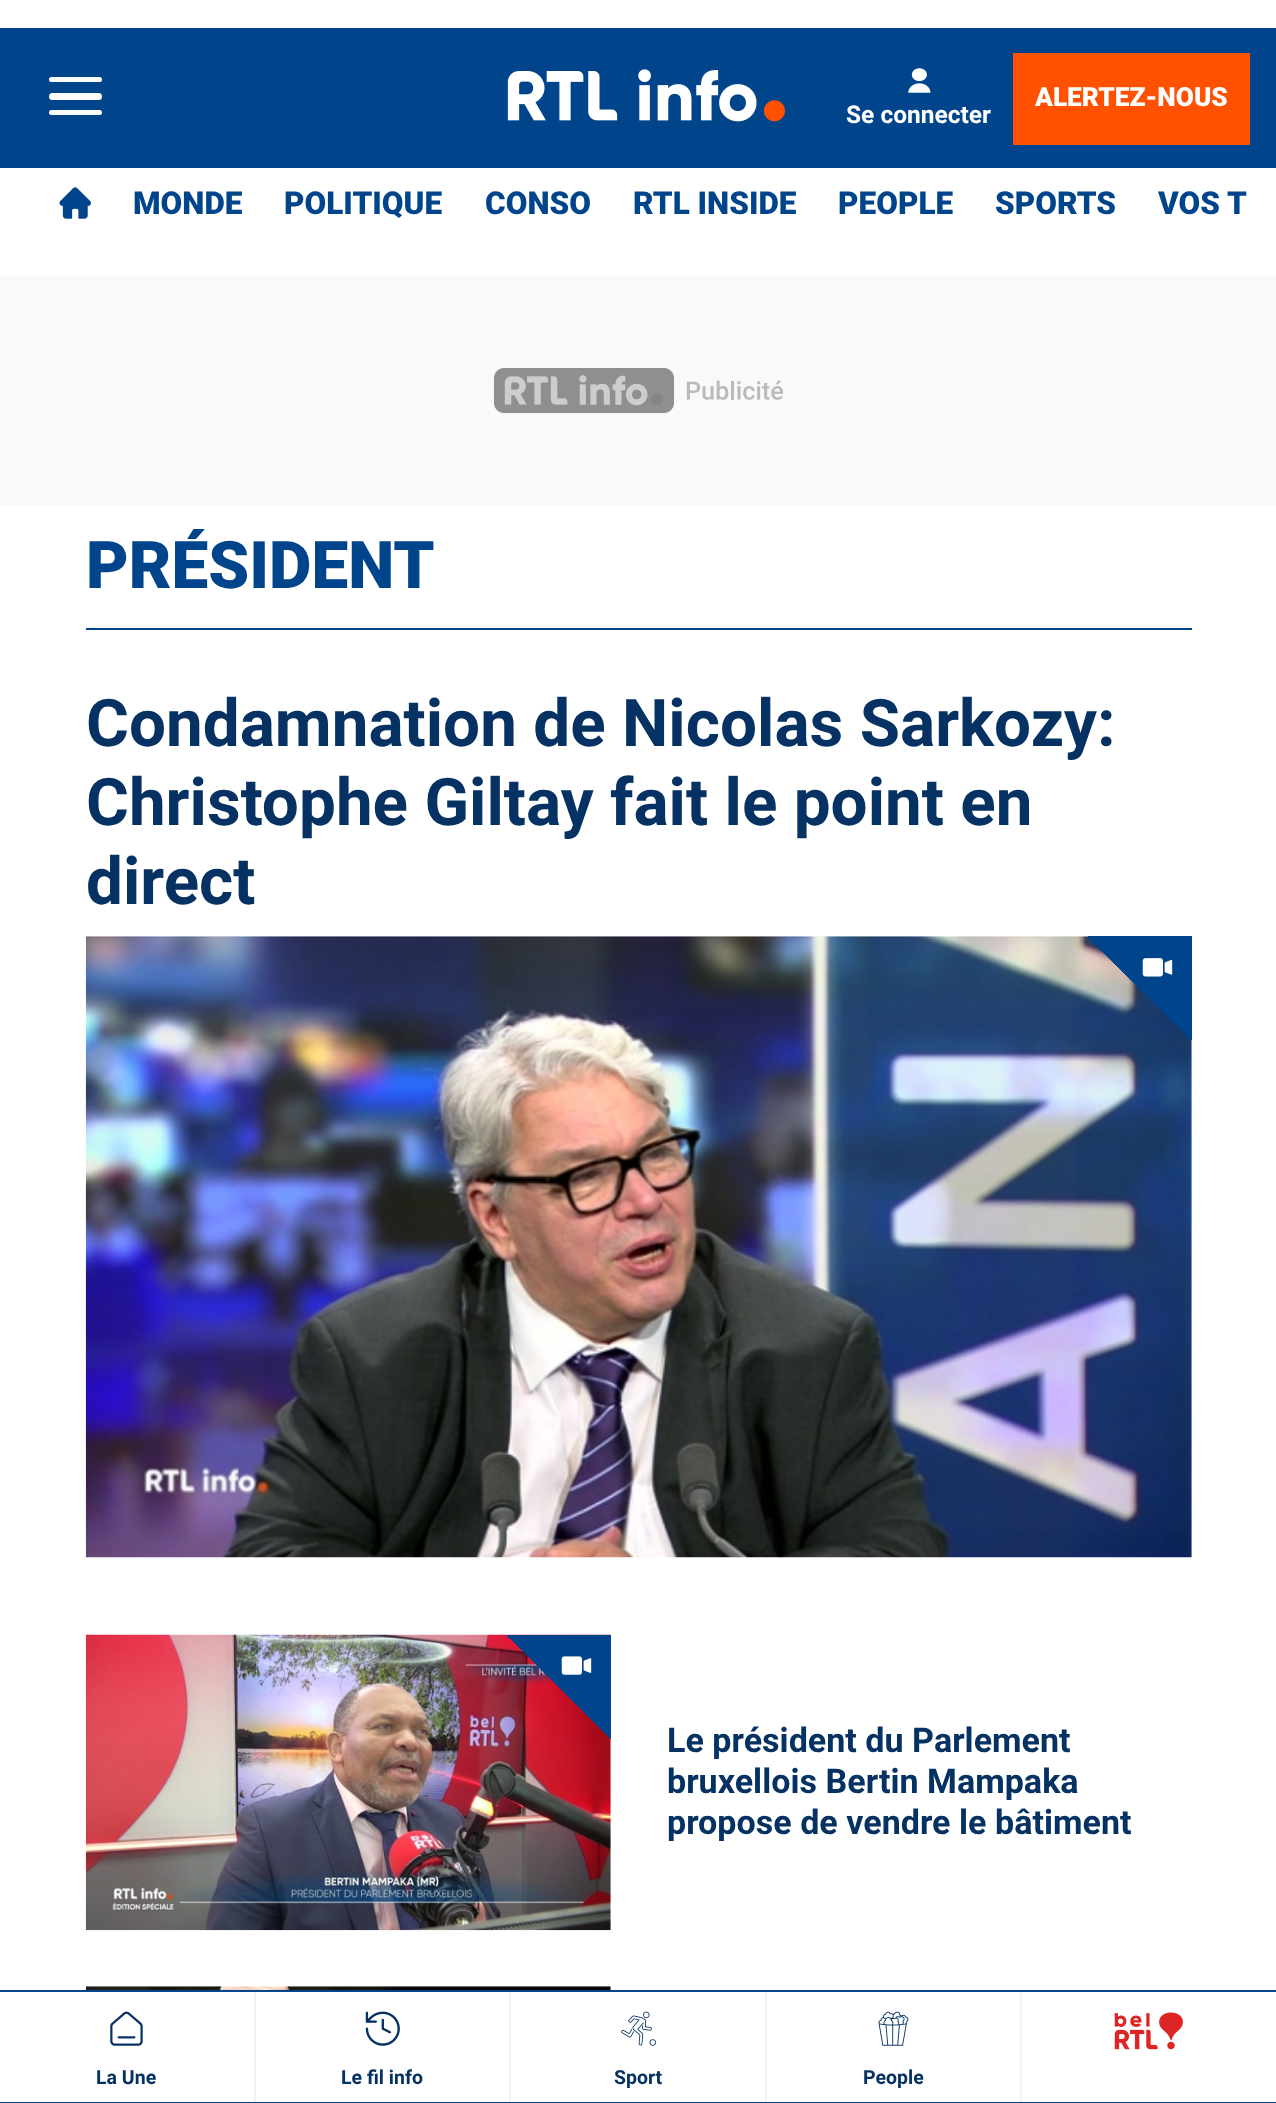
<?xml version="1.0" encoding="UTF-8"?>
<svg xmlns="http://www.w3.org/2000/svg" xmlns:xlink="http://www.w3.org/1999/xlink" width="1276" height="2103">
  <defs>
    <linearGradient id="g1" gradientUnits="userSpaceOnUse" x1="1192" y1="936" x2="1087" y2="1041"><stop offset="0" stop-color="#00458c" /><stop offset="0.5" stop-color="#00458c" /><stop offset="0.5" stop-color="#00458c" stop-opacity="0" /><stop offset="1" stop-color="#000000" stop-opacity="0" /></linearGradient>
    <linearGradient id="g2" gradientUnits="userSpaceOnUse" x1="611" y1="1635" x2="506" y2="1740"><stop offset="0" stop-color="#00458c" /><stop offset="0.5" stop-color="#00458c" /><stop offset="0.5" stop-color="#00458c" stop-opacity="0" /><stop offset="1" stop-color="#000000" stop-opacity="0" /></linearGradient>
  </defs>
  <rect width="100%" height="100%" fill="#ffffff" />
  <rect y="28" width="1276" height="140" fill="#00458c" />
  <rect x="49" y="77" width="53" height="5" rx="2.5" fill="#ffffff" />
  <rect x="49" y="93" width="53" height="7" rx="3.5" fill="#ffffff" />
  <rect x="49" y="110" width="53" height="5" rx="2.5" fill="#ffffff" />
  <image x="507" y="69" width="278" height="53" xlink:href="image1.png" />
  <rect x="1013" y="53" width="237" height="92" fill="#ff5100" />
  <image x="908" y="68" width="23" height="25" xlink:href="image2.png" />
  <image x="59" y="187" width="32" height="32" xlink:href="image3.png" />
  <rect y="1990" width="1276" height="2" fill="#00458c" />
  <rect y="2102" width="1276" height="1" fill="#00458c" />
  <image x="1114" y="2012" width="69" height="38" xlink:href="image4.png" />
  <rect x="254" y="1992" width="2" height="110" fill="#eff4f7" />
  <image x="110" y="2011" width="33" height="35" xlink:href="image5.png" />
  <rect x="509" y="1992" width="2" height="110" fill="#eff4f7" />
  <image x="365" y="2011" width="35" height="35" xlink:href="image6.png" />
  <rect x="765" y="1992" width="2" height="110" fill="#eff4f7" />
  <image x="621" y="2011" width="35" height="35" xlink:href="image7.png" />
  <rect x="1020" y="1992" width="2" height="110" fill="#eff4f7" />
  <image x="878" y="2011" width="31" height="35" xlink:href="image8.png" />
  <rect y="275" width="1276" height="231" fill="#f9f9fc" />
  <image x="494" y="368" width="289" height="45" xlink:href="image9.png" />
  <rect x="86" y="628" width="1106" height="2" fill="#00458c" />
  <image x="85" y="936" width="1107" height="622" xlink:href="image10.png" />
  <rect x="1088" y="936" width="104" height="104" fill="url(#g1)" />
  <image x="1142" y="958" width="31" height="19" xlink:href="image11.png" />
  <image x="85" y="1634" width="526" height="297" xlink:href="image12.png" />
  <rect x="507" y="1635" width="104" height="104" fill="url(#g2)" />
  <image x="561" y="1656" width="31" height="19" xlink:href="image13.png" />
  <image x="85" y="1986" width="526" height="4" xlink:href="image14.png" />
  <text x="1035" y="106" style="font-family: Roboto; font-size: 26.25px; font-weight: 900; fill: #ffffff">ALERTEZ-NOUS</text>
  <text x="846" y="123" style="font-family: Roboto; font-size: 24.5px; font-weight: bold; fill: #ffffff">Se connecter</text>
  <text x="133" y="214" style="font-family: Roboto; font-size: 31.5px; font-weight: 900; fill: #00458c">MONDE</text>
  <text x="284" y="214" style="font-family: Roboto; font-size: 31.5px; font-weight: 900; fill: #00458c">POLITIQUE</text>
  <text x="485" y="214" style="font-family: Roboto; font-size: 31.5px; font-weight: 900; fill: #00458c">CONSO</text>
  <text x="633" y="214" style="font-family: Roboto; font-size: 31.5px; font-weight: 900; fill: #00458c">RTL INSIDE</text>
  <text x="838" y="214" style="font-family: Roboto; font-size: 31.5px; font-weight: 900; fill: #00458c">PEOPLE</text>
  <text x="995" y="214" style="font-family: Roboto; font-size: 31.5px; font-weight: 900; fill: #00458c">SPORTS</text>
  <text x="1158" y="214" style="font-family: Roboto; font-size: 31.5px; font-weight: 900; fill: #00458c">VOS T</text>
  <text x="96" y="2084" style="font-family: Roboto; font-size: 19.5px; font-weight: bold; fill: #053262">La Une</text>
  <text x="341" y="2084" style="font-family: Roboto; font-size: 19.5px; font-weight: bold; fill: #053262">Le fil info</text>
  <text x="614" y="2084" style="font-family: Roboto; font-size: 19.5px; font-weight: bold; fill: #053262">Sport</text>
  <text x="863" y="2084" style="font-family: Roboto; font-size: 19.5px; font-weight: bold; fill: #053262">People</text>
  <text x="86" y="588" style="font-family: Roboto; font-size: 65.6px; font-weight: 900; fill: #00458c">PRÉSIDENT</text>
  <text x="86" y="746" style="font-family: Roboto; font-size: 65.6px; font-weight: bold; fill: #053262">Condamnation de Nicolas Sarkozy:</text>
  <text x="86" y="825" style="font-family: Roboto; font-size: 65.6px; font-weight: bold; fill: #053262">Christophe Giltay fait le point en</text>
  <text x="86" y="904" style="font-family: Roboto; font-size: 65.6px; font-weight: bold; fill: #053262">direct</text>
  <text x="667" y="1752" style="font-family: Roboto; font-size: 34.1px; font-weight: bold; fill: #053262">Le président du Parlement</text>
  <text x="667" y="1793" style="font-family: Roboto; font-size: 34.1px; font-weight: bold; fill: #053262">bruxellois Bertin Mampaka</text>
  <text x="667" y="1834" style="font-family: Roboto; font-size: 34.1px; font-weight: bold; fill: #053262">propose de vendre le bâtiment</text>
</svg>
